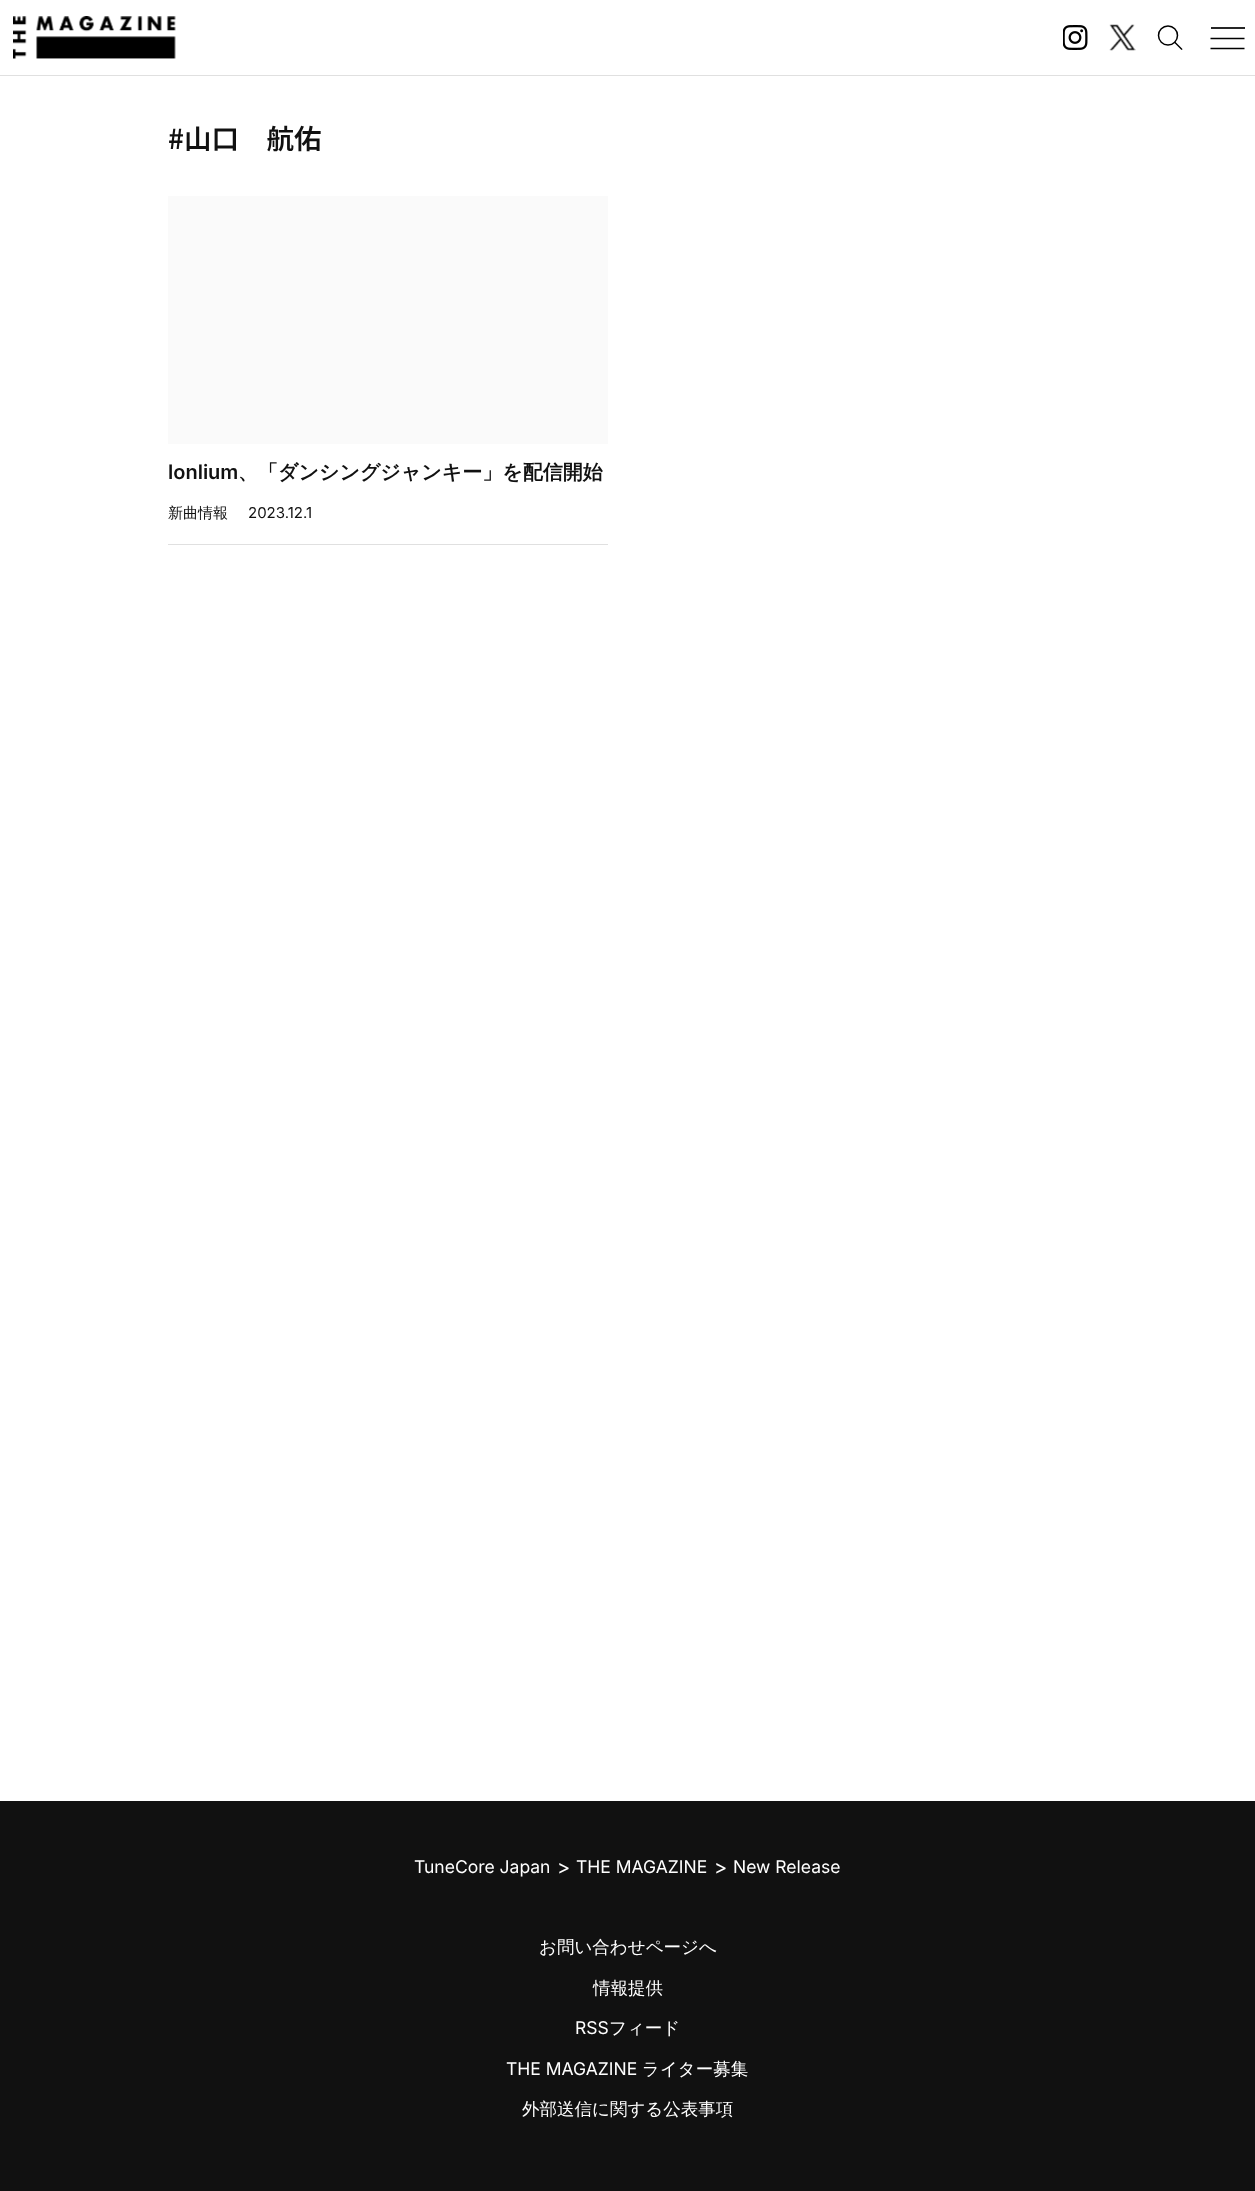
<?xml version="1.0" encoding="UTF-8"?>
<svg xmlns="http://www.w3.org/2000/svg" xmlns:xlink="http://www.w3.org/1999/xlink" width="1255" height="2191">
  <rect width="100%" height="100%" fill="#ffffff" />
  <rect y="75" width="1255" height="1" fill="#e0e0e0" />
  <image x="13" y="16" width="163" height="43" xlink:href="image1.png" />
  <image x="1063" y="25" width="25" height="25" xlink:href="image2.png" />
  <image x="1109" y="24" width="27" height="27" xlink:href="image3.png" />
  <circle cx="1168" cy="35.5" r="9.5" fill="none" stroke="#000000" stroke-width="1.5" />
  <path d="M 1181 49.5 c 1 1 2 0 1 -1 z m 1 -1 l -7 -7 l -1 1 l 7 7 z" fill="#000000" />
  <rect x="1211" y="27" width="34" height="2" fill="#262626" />
  <path d="M 1210.5 38.5 h 34 m -34 10 h 34" fill="none" stroke="#000000" stroke-width="1.7" />
  <rect x="168" y="196" width="440" height="248" fill="#fafafa" />
  <rect x="168" y="544" width="440" height="1" fill="#e0e0e0" />
  <rect y="1801" width="1255" height="390" fill="#111111" />
  <text x="168" y="149" style="font-family: Noto Sans JP; font-size: 27.5px; font-weight: 600; fill: #111111">#山口　航佑</text>
  <text x="168" y="479" style="font-family: Inter; font-size: 20px; font-weight: 600; fill: #111111">lonlium</text>
  <text x="238" y="479" style="font-family: WenQuanYi Zen Hei; font-size: 20px; font-weight: bold; fill: #111111">、「ダンシングジャンキー」を配信開始</text>
  <text x="168" y="518" style="font-family: WenQuanYi Zen Hei; font-size: 15px; font-weight: 500; fill: #111111">新曲情報</text>
  <text x="248" y="518" style="font-family: Inter; font-size: 15px; fill: #111111">2023.12.1</text>
  <text x="414" y="1873" style="font-family: Inter; font-size: 17.5px; fill: #ffffff">TuneCore Japan</text>
  <text x="557" y="1874" style="font-family: Inter; font-size: 20px; fill: #ffffff">&gt;</text>
  <text x="576" y="1873" style="font-family: Inter; font-size: 17.5px; fill: #ffffff">THE MAGAZINE</text>
  <text x="714" y="1874" style="font-family: Inter; font-size: 20px; fill: #ffffff">&gt;</text>
  <text x="733" y="1873" style="font-family: Inter; font-size: 17.5px; fill: #ffffff">New Release</text>
  <text x="539" y="1953" style="font-family: WenQuanYi Zen Hei; font-size: 17.5px; font-weight: 500; fill: #ffffff">お問い合わせページへ</text>
  <text x="593" y="1994" style="font-family: WenQuanYi Zen Hei; font-size: 17.5px; font-weight: 500; fill: #ffffff">情報提供</text>
  <text x="575" y="2034" style="font-family: Inter; font-size: 17.5px; fill: #ffffff">RSS</text>
  <text x="609" y="2034" style="font-family: WenQuanYi Zen Hei; font-size: 17.5px; font-weight: 500; fill: #ffffff">フィード</text>
  <text x="506" y="2075" style="font-family: Inter; font-size: 17.5px; fill: #ffffff">THE MAGAZINE</text>
  <text x="642" y="2075" style="font-family: WenQuanYi Zen Hei; font-size: 17.5px; font-weight: 500; fill: #ffffff">ライター募集</text>
  <text x="522" y="2115" style="font-family: WenQuanYi Zen Hei; font-size: 17.5px; font-weight: 500; fill: #ffffff">外部送信に関する公表事項</text>
</svg>
